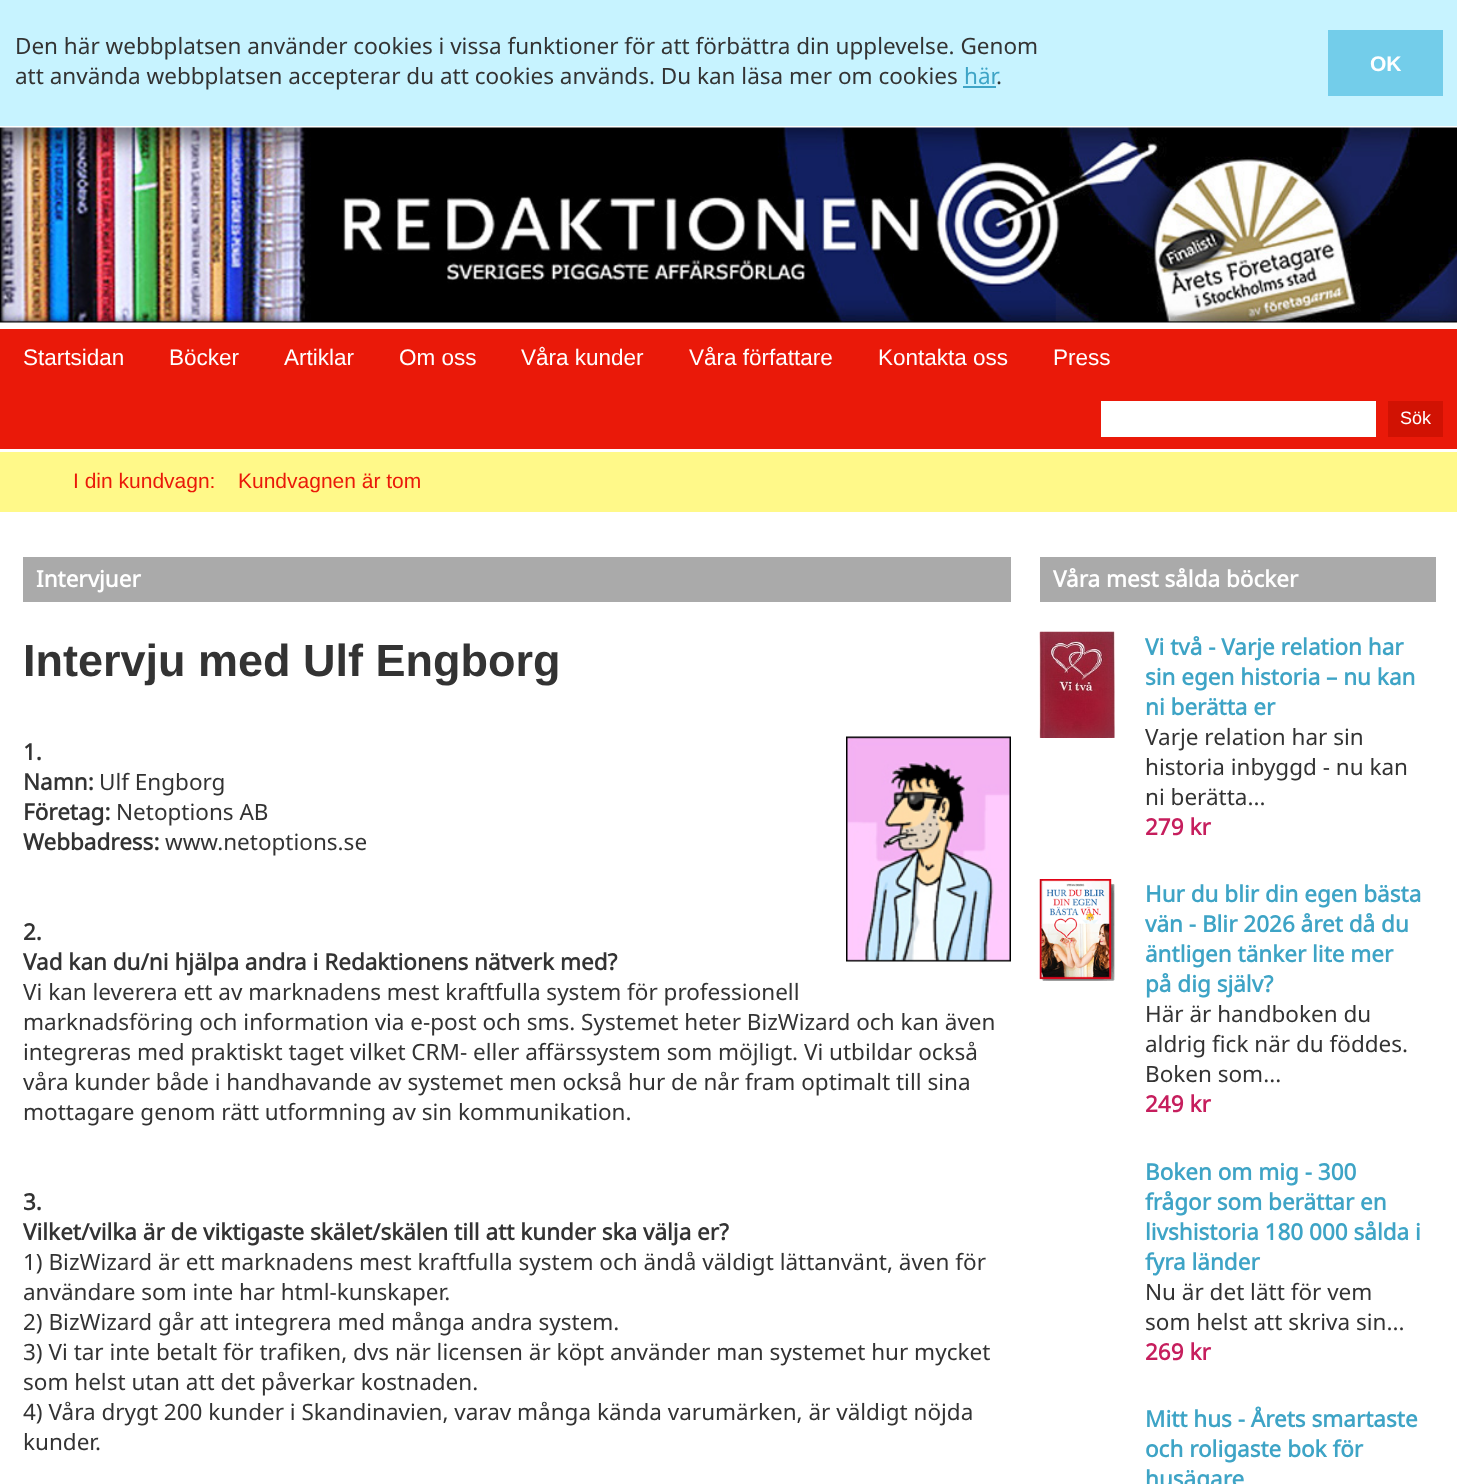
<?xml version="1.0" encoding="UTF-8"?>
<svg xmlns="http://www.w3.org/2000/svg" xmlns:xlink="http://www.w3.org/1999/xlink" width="1457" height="1484">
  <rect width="100%" height="100%" fill="#ffffff" />
  <rect width="1457" height="126" fill="#c7f3ff" />
  <rect x="963" y="86" width="33" height="2" fill="#3ea4c6" />
  <rect x="1329.5" y="31.5" width="112" height="63" fill="#73cdea" stroke="#73cdea" stroke-width="3" />
  <image x="0" y="127" width="1457" height="196" xlink:href="image1.png" />
  <rect y="329" width="1457" height="120" fill="#ea1909" />
  <rect x="1101" y="401" width="275" height="36" fill="#ffffff" />
  <rect x="1389.5" y="402.5" width="52" height="33" fill="#d11203" stroke="#d11203" stroke-width="3" />
  <rect y="452" width="1457" height="60" fill="#fff989" />
  <rect x="23" y="557" width="988" height="45" fill="#aaaaaa" />
  <image x="846" y="736" width="165" height="226" xlink:href="image2.png" />
  <rect x="1040" y="557" width="396" height="45" fill="#aaaaaa" />
  <image x="1039" y="631" width="76" height="107" xlink:href="image3.png" />
  <image x="1039" y="879" width="76" height="102" xlink:href="image4.png" />
  <text x="15" y="54" style="font-family: Noto Sans; font-size: 22.5px; fill: #333333">Den här webbplatsen använder cookies i vissa funktioner för att förbättra din upplevelse. Genom</text>
  <text x="15" y="84" style="font-family: Noto Sans; font-size: 22.5px; fill: #333333">att använda webbplatsen accepterar du att cookies används. Du kan läsa mer om cookies</text>
  <text x="964" y="84" style="font-family: Noto Sans; font-size: 22.5px; fill: #3ea4c6">här</text>
  <text x="996" y="84" style="font-family: Noto Sans; font-size: 22.5px; fill: #333333">.</text>
  <text x="1370" y="71" style="font-family: Liberation Sans; font-size: 21px; font-weight: bold; fill: #ffffff">OK</text>
  <text x="23" y="365" style="font-family: Liberation Sans; font-size: 22.5px; fill: #ffffff">Startsidan</text>
  <text x="169" y="365" style="font-family: Liberation Sans; font-size: 22.5px; fill: #ffffff">Böcker</text>
  <text x="284" y="365" style="font-family: Liberation Sans; font-size: 22.5px; fill: #ffffff">Artiklar</text>
  <text x="399" y="365" style="font-family: Liberation Sans; font-size: 22.5px; fill: #ffffff">Om oss</text>
  <text x="521" y="365" style="font-family: Liberation Sans; font-size: 22.5px; fill: #ffffff">Våra kunder</text>
  <text x="689" y="365" style="font-family: Liberation Sans; font-size: 22.5px; fill: #ffffff">Våra författare</text>
  <text x="878" y="365" style="font-family: Liberation Sans; font-size: 22.5px; fill: #ffffff">Kontakta oss</text>
  <text x="1053" y="365" style="font-family: Liberation Sans; font-size: 22.5px; fill: #ffffff">Press</text>
  <text x="1400" y="424" style="font-family: Liberation Sans; font-size: 18px; fill: #ffffff">Sök</text>
  <text x="73" y="488" style="font-family: Liberation Sans; font-size: 21px; fill: #ea1909">I din kundvagn:</text>
  <text x="238" y="488" style="font-family: Liberation Sans; font-size: 21px; fill: #ea1909">Kundvagnen är tom</text>
  <text x="36" y="587" style="font-family: Noto Sans; font-size: 22.5px; font-weight: bold; fill: #ffffff">Intervjuer</text>
  <text x="23" y="676" style="font-family: Liberation Sans; font-size: 45px; font-weight: bold; fill: #333333">Intervju med Ulf Engborg</text>
  <text x="23" y="760" style="font-family: Noto Sans; font-size: 22.5px; font-weight: bold; fill: #333333">1.</text>
  <text x="23" y="790" style="font-family: Noto Sans; font-size: 22.5px; font-weight: bold; fill: #333333">Namn:</text>
  <text x="99" y="790" style="font-family: Noto Sans; font-size: 22.5px; fill: #333333">Ulf Engborg</text>
  <text x="23" y="820" style="font-family: Noto Sans; font-size: 22.5px; font-weight: bold; fill: #333333">Företag:</text>
  <text x="116" y="820" style="font-family: Noto Sans; font-size: 22.5px; fill: #333333">Netoptions AB</text>
  <text x="23" y="850" style="font-family: Noto Sans; font-size: 22.5px; font-weight: bold; fill: #333333">Webbadress:</text>
  <text x="165" y="850" style="font-family: Noto Sans; font-size: 22.5px; fill: #333333">www.netoptions.se</text>
  <text x="23" y="940" style="font-family: Noto Sans; font-size: 22.5px; font-weight: bold; fill: #333333">2.</text>
  <text x="23" y="970" style="font-family: Noto Sans; font-size: 22.5px; font-weight: bold; fill: #333333">Vad kan du/ni hjälpa andra i Redaktionens nätverk med?</text>
  <text x="23" y="1000" style="font-family: Noto Sans; font-size: 22.5px; fill: #333333">Vi kan leverera ett av marknadens mest kraftfulla system för professionell</text>
  <text x="23" y="1030" style="font-family: Noto Sans; font-size: 22.5px; fill: #333333">marknadsföring och information via e-post och sms. Systemet heter BizWizard och kan även</text>
  <text x="23" y="1060" style="font-family: Noto Sans; font-size: 22.5px; fill: #333333">integreras med praktiskt taget vilket CRM- eller affärssystem som möjligt. Vi utbildar också</text>
  <text x="23" y="1090" style="font-family: Noto Sans; font-size: 22.5px; fill: #333333">våra kunder både i handhavande av systemet men också hur de når fram optimalt till sina</text>
  <text x="23" y="1120" style="font-family: Noto Sans; font-size: 22.5px; fill: #333333">mottagare genom rätt utformning av sin kommunikation.</text>
  <text x="23" y="1210" style="font-family: Noto Sans; font-size: 22.5px; font-weight: bold; fill: #333333">3.</text>
  <text x="23" y="1240" style="font-family: Noto Sans; font-size: 22.5px; font-weight: bold; fill: #333333">Vilket/vilka är de viktigaste skälet/skälen till att kunder ska välja er?</text>
  <text x="23" y="1270" style="font-family: Noto Sans; font-size: 22.5px; fill: #333333">1) BizWizard är ett marknadens mest kraftfulla system och ändå väldigt lättanvänt, även för</text>
  <text x="23" y="1300" style="font-family: Noto Sans; font-size: 22.5px; fill: #333333">användare som inte har html-kunskaper.</text>
  <text x="23" y="1330" style="font-family: Noto Sans; font-size: 22.5px; fill: #333333">2) BizWizard går att integrera med många andra system.</text>
  <text x="23" y="1360" style="font-family: Noto Sans; font-size: 22.5px; fill: #333333">3) Vi tar inte betalt för trafiken, dvs när licensen är köpt använder man systemet hur mycket</text>
  <text x="23" y="1390" style="font-family: Noto Sans; font-size: 22.5px; fill: #333333">som helst utan att det påverkar kostnaden.</text>
  <text x="23" y="1420" style="font-family: Noto Sans; font-size: 22.5px; fill: #333333">4) Våra drygt 200 kunder i Skandinavien, varav många kända varumärken, är väldigt nöjda</text>
  <text x="23" y="1450" style="font-family: Noto Sans; font-size: 22.5px; fill: #333333">kunder.</text>
  <text x="1053" y="587" style="font-family: Noto Sans; font-size: 22.5px; font-weight: bold; fill: #ffffff">Våra mest sålda böcker</text>
  <text x="1145" y="655" style="font-family: Noto Sans; font-size: 22.5px; font-weight: bold; fill: #3ea4c6">Vi två - Varje relation har</text>
  <text x="1145" y="685" style="font-family: Noto Sans; font-size: 22.5px; font-weight: bold; fill: #3ea4c6">sin egen historia – nu kan</text>
  <text x="1145" y="715" style="font-family: Noto Sans; font-size: 22.5px; font-weight: bold; fill: #3ea4c6">ni berätta er</text>
  <text x="1145" y="745" style="font-family: Noto Sans; font-size: 22.5px; fill: #333333">Varje relation har sin</text>
  <text x="1145" y="775" style="font-family: Noto Sans; font-size: 22.5px; fill: #333333">historia inbyggd - nu kan</text>
  <text x="1145" y="805" style="font-family: Noto Sans; font-size: 22.5px; fill: #333333">ni berätta...</text>
  <text x="1145" y="835" style="font-family: Noto Sans; font-size: 22.5px; font-weight: bold; fill: #c61e5d">279 kr</text>
  <text x="1145" y="902" style="font-family: Noto Sans; font-size: 22.5px; font-weight: bold; fill: #3ea4c6">Hur du blir din egen bästa</text>
  <text x="1145" y="932" style="font-family: Noto Sans; font-size: 22.5px; font-weight: bold; fill: #3ea4c6">vän - Blir 2026 året då du</text>
  <text x="1145" y="962" style="font-family: Noto Sans; font-size: 22.5px; font-weight: bold; fill: #3ea4c6">äntligen tänker lite mer</text>
  <text x="1145" y="992" style="font-family: Noto Sans; font-size: 22.5px; font-weight: bold; fill: #3ea4c6">på dig själv?</text>
  <text x="1145" y="1022" style="font-family: Noto Sans; font-size: 22.5px; fill: #333333">Här är handboken du</text>
  <text x="1145" y="1052" style="font-family: Noto Sans; font-size: 22.5px; fill: #333333">aldrig fick när du föddes.</text>
  <text x="1145" y="1082" style="font-family: Noto Sans; font-size: 22.5px; fill: #333333">Boken som...</text>
  <text x="1145" y="1112" style="font-family: Noto Sans; font-size: 22.5px; font-weight: bold; fill: #c61e5d">249 kr</text>
  <text x="1145" y="1180" style="font-family: Noto Sans; font-size: 22.5px; font-weight: bold; fill: #3ea4c6">Boken om mig - 300</text>
  <text x="1145" y="1210" style="font-family: Noto Sans; font-size: 22.5px; font-weight: bold; fill: #3ea4c6">frågor som berättar en</text>
  <text x="1145" y="1240" style="font-family: Noto Sans; font-size: 22.5px; font-weight: bold; fill: #3ea4c6">livshistoria 180 000 sålda i</text>
  <text x="1145" y="1270" style="font-family: Noto Sans; font-size: 22.5px; font-weight: bold; fill: #3ea4c6">fyra länder</text>
  <text x="1145" y="1300" style="font-family: Noto Sans; font-size: 22.5px; fill: #333333">Nu är det lätt för vem</text>
  <text x="1145" y="1330" style="font-family: Noto Sans; font-size: 22.5px; fill: #333333">som helst att skriva sin...</text>
  <text x="1145" y="1360" style="font-family: Noto Sans; font-size: 22.5px; font-weight: bold; fill: #c61e5d">269 kr</text>
  <text x="1145" y="1427" style="font-family: Noto Sans; font-size: 22.5px; font-weight: bold; fill: #3ea4c6">Mitt hus - Årets smartaste</text>
  <text x="1145" y="1457" style="font-family: Noto Sans; font-size: 22.5px; font-weight: bold; fill: #3ea4c6">och roligaste bok för</text>
  <text x="1145" y="1487" style="font-family: Noto Sans; font-size: 22.5px; font-weight: bold; fill: #3ea4c6">husägare</text>
</svg>
